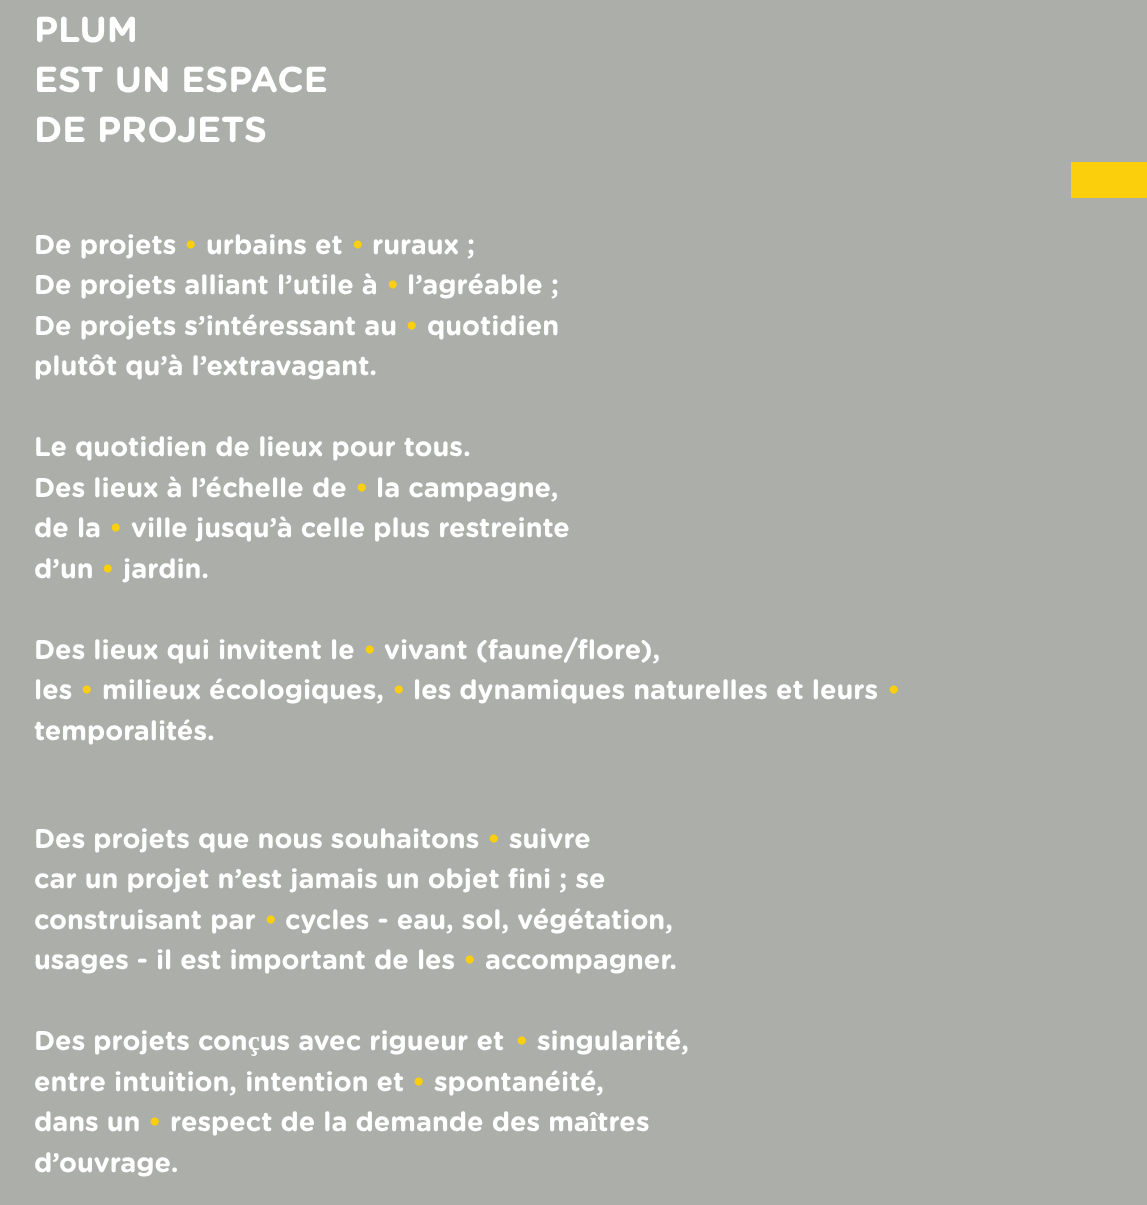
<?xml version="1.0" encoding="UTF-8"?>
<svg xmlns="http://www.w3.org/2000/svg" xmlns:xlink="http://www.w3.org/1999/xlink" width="1147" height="1205">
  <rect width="100%" height="100%" fill="#acaea9" />
  <rect x="1071" y="162" width="76" height="36" fill="#fccf0d" />
  <text x="34" y="42" style="font-family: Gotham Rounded; font-size: 36px; font-weight: bold; fill: #ffffff">PLUM</text>
  <text x="34" y="92" style="font-family: Gotham Rounded; font-size: 36px; font-weight: bold; fill: #ffffff">EST UN ESPACE</text>
  <text x="34" y="142" style="font-family: Gotham Rounded; font-size: 36px; font-weight: bold; fill: #ffffff">DE PROJETS</text>
  <text x="34" y="254" style="font-family: Gotham Rounded; font-size: 27px; font-weight: bold; fill: #ffffff">De projets</text>
  <text x="184" y="254" style="font-family: Gotham Rounded; font-size: 27px; font-weight: bold; fill: #fccf0d">•</text>
  <text x="206" y="254" style="font-family: Gotham Rounded; font-size: 27px; font-weight: bold; fill: #ffffff">urbains et</text>
  <text x="351" y="254" style="font-family: Gotham Rounded; font-size: 27px; font-weight: bold; fill: #fccf0d">•</text>
  <text x="372" y="254" style="font-family: Gotham Rounded; font-size: 27px; font-weight: bold; fill: #ffffff">ruraux ;</text>
  <text x="34" y="294" style="font-family: Gotham Rounded; font-size: 27px; font-weight: bold; fill: #ffffff">De projets alliant l’utile à</text>
  <text x="386" y="294" style="font-family: Gotham Rounded; font-size: 27px; font-weight: bold; fill: #fccf0d">•</text>
  <text x="407" y="294" style="font-family: Gotham Rounded; font-size: 27px; font-weight: bold; fill: #ffffff">l’agréable ;</text>
  <text x="34" y="335" style="font-family: Gotham Rounded; font-size: 27px; font-weight: bold; fill: #ffffff">De projets s’intéressant au</text>
  <text x="405" y="335" style="font-family: Gotham Rounded; font-size: 27px; font-weight: bold; fill: #fccf0d">•</text>
  <text x="427" y="335" style="font-family: Gotham Rounded; font-size: 27px; font-weight: bold; fill: #ffffff">quotidien</text>
  <text x="34" y="375" style="font-family: Gotham Rounded; font-size: 27px; font-weight: bold; fill: #ffffff">plutôt qu’à l’extravagant.</text>
  <text x="34" y="456" style="font-family: Gotham Rounded; font-size: 27px; font-weight: bold; fill: #ffffff">Le quotidien de lieux pour tous.</text>
  <text x="34" y="497" style="font-family: Gotham Rounded; font-size: 27px; font-weight: bold; fill: #ffffff">Des lieux à l’échelle de</text>
  <text x="355" y="497" style="font-family: Gotham Rounded; font-size: 27px; font-weight: bold; fill: #fccf0d">•</text>
  <text x="376" y="497" style="font-family: Gotham Rounded; font-size: 27px; font-weight: bold; fill: #ffffff">la campagne,</text>
  <text x="34" y="537" style="font-family: Gotham Rounded; font-size: 27px; font-weight: bold; fill: #ffffff">de la</text>
  <text x="109" y="537" style="font-family: Gotham Rounded; font-size: 27px; font-weight: bold; fill: #fccf0d">•</text>
  <text x="131" y="537" style="font-family: Gotham Rounded; font-size: 27px; font-weight: bold; fill: #ffffff">ville jusqu’à celle plus restreinte</text>
  <text x="34" y="578" style="font-family: Gotham Rounded; font-size: 27px; font-weight: bold; fill: #ffffff">d’un</text>
  <text x="101" y="578" style="font-family: Gotham Rounded; font-size: 27px; font-weight: bold; fill: #fccf0d">•</text>
  <text x="123" y="578" style="font-family: Gotham Rounded; font-size: 27px; font-weight: bold; fill: #ffffff">jardin.</text>
  <text x="34" y="659" style="font-family: Gotham Rounded; font-size: 27px; font-weight: bold; fill: #ffffff">Des lieux qui invitent le</text>
  <text x="363" y="659" style="font-family: Gotham Rounded; font-size: 27px; font-weight: bold; fill: #fccf0d">•</text>
  <text x="384" y="659" style="font-family: Gotham Rounded; font-size: 27px; font-weight: bold; fill: #ffffff">vivant (faune/flore),</text>
  <text x="34" y="699" style="font-family: Gotham Rounded; font-size: 27px; font-weight: bold; fill: #ffffff">les</text>
  <text x="80" y="699" style="font-family: Gotham Rounded; font-size: 27px; font-weight: bold; fill: #fccf0d">•</text>
  <text x="102" y="699" style="font-family: Gotham Rounded; font-size: 27px; font-weight: bold; fill: #ffffff">milieux écologiques,</text>
  <text x="392" y="699" style="font-family: Gotham Rounded; font-size: 27px; font-weight: bold; fill: #fccf0d">•</text>
  <text x="413" y="699" style="font-family: Gotham Rounded; font-size: 27px; font-weight: bold; fill: #ffffff">les dynamiques naturelles et leurs</text>
  <text x="887" y="699" style="font-family: Gotham Rounded; font-size: 27px; font-weight: bold; fill: #fccf0d">•</text>
  <text x="34" y="740" style="font-family: Gotham Rounded; font-size: 27px; font-weight: bold; fill: #ffffff">temporalités.</text>
  <text x="34" y="848" style="font-family: Gotham Rounded; font-size: 27px; font-weight: bold; fill: #ffffff">Des projets que nous souhaitons</text>
  <text x="487" y="848" style="font-family: Gotham Rounded; font-size: 27px; font-weight: bold; fill: #fccf0d">•</text>
  <text x="509" y="848" style="font-family: Gotham Rounded; font-size: 27px; font-weight: bold; fill: #ffffff">suivre</text>
  <text x="34" y="888" style="font-family: Gotham Rounded; font-size: 27px; font-weight: bold; fill: #ffffff">car un projet n’est jamais un objet fini ; se</text>
  <text x="34" y="929" style="font-family: Gotham Rounded; font-size: 27px; font-weight: bold; fill: #ffffff">construisant par</text>
  <text x="264" y="929" style="font-family: Gotham Rounded; font-size: 27px; font-weight: bold; fill: #fccf0d">•</text>
  <text x="285" y="929" style="font-family: Gotham Rounded; font-size: 27px; font-weight: bold; fill: #ffffff">cycles - eau, sol, végétation,</text>
  <text x="34" y="969" style="font-family: Gotham Rounded; font-size: 27px; font-weight: bold; fill: #ffffff">usages - il est important de les</text>
  <text x="463" y="969" style="font-family: Gotham Rounded; font-size: 27px; font-weight: bold; fill: #fccf0d">•</text>
  <text x="485" y="969" style="font-family: Gotham Rounded; font-size: 27px; font-weight: bold; fill: #ffffff">accompagner.</text>
  <text x="34" y="1050" style="font-family: Gotham Rounded; font-size: 27px; font-weight: bold; fill: #ffffff">Des projets conçus avec rigueur et</text>
  <text x="515" y="1050" style="font-family: Gotham Rounded; font-size: 27px; font-weight: bold; fill: #fccf0d">•</text>
  <text x="537" y="1050" style="font-family: Gotham Rounded; font-size: 27px; font-weight: bold; fill: #ffffff">singularité,</text>
  <text x="34" y="1091" style="font-family: Gotham Rounded; font-size: 27px; font-weight: bold; fill: #ffffff">entre intuition, intention et</text>
  <text x="412" y="1091" style="font-family: Gotham Rounded; font-size: 27px; font-weight: bold; fill: #fccf0d">•</text>
  <text x="434" y="1091" style="font-family: Gotham Rounded; font-size: 27px; font-weight: bold; fill: #ffffff">spontanéité,</text>
  <text x="34" y="1131" style="font-family: Gotham Rounded; font-size: 27px; font-weight: bold; fill: #ffffff">dans un</text>
  <text x="148" y="1131" style="font-family: Gotham Rounded; font-size: 27px; font-weight: bold; fill: #fccf0d">•</text>
  <text x="170" y="1131" style="font-family: Gotham Rounded; font-size: 27px; font-weight: bold; fill: #ffffff">respect de la demande des maîtres</text>
  <text x="34" y="1172" style="font-family: Gotham Rounded; font-size: 27px; font-weight: bold; fill: #ffffff">d’ouvrage.</text>
</svg>
